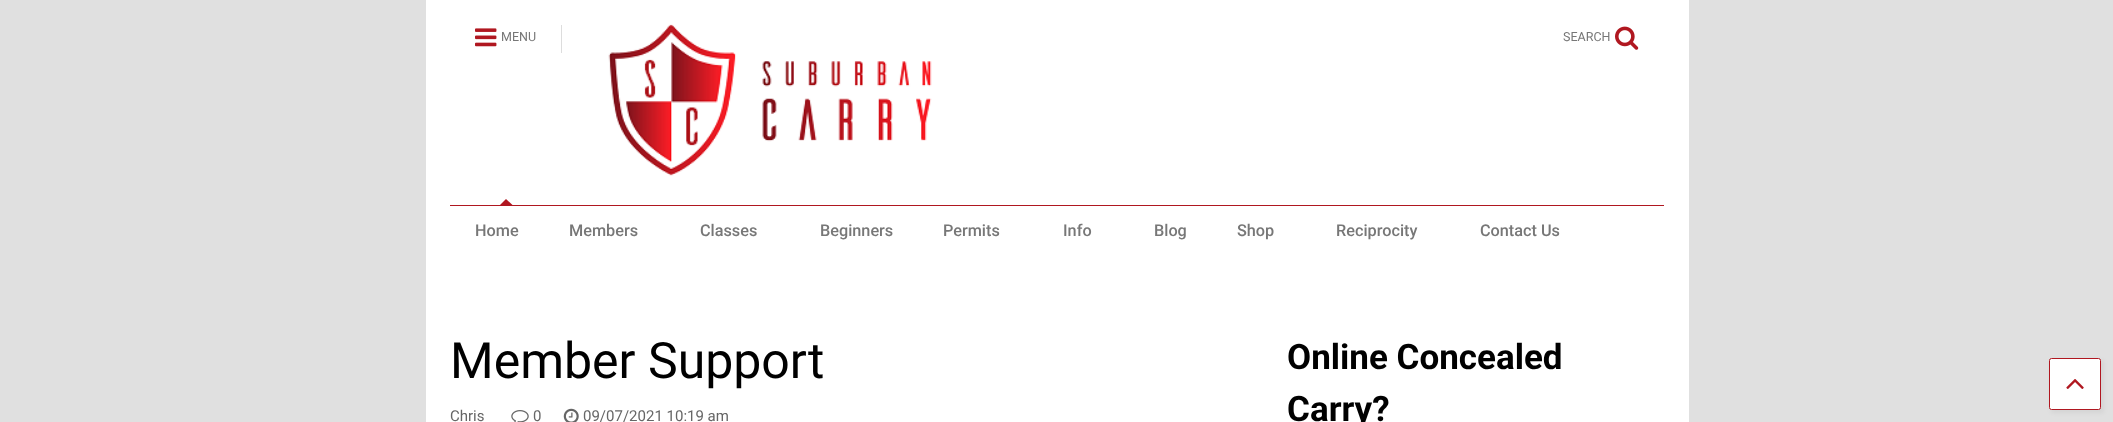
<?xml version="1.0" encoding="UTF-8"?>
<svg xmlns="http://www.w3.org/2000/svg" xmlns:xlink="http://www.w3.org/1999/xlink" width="2113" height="422">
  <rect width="100%" height="100%" fill="#e0e0e0" />
  <rect x="426" width="1263" height="422" fill="#ffffff" />
  <rect x="561" y="25" width="1" height="28" fill="#dddddd" />
  <image x="475" y="28" width="22" height="19" xlink:href="image1.png" />
  <path d="M 512.5 205 h -12.5 l 6 -6 z" fill="#b01720" />
  <image x="608" y="24" width="324" height="152" xlink:href="image2.png" />
  <image x="1615" y="26" width="24" height="24" xlink:href="image3.png" />
  <rect x="450" y="205" width="1214" height="1" fill="#b01720" />
  <image x="511" y="410" width="18" height="12" xlink:href="image4.png" />
  <image x="563" y="408" width="16" height="14" xlink:href="image5.png" />
  <rect x="2051" y="360" width="53" height="53" rx="2.5" fill="#000000" fill-opacity="0.05" filter="blur(2px)" />
  <rect x="2049.5" y="358.5" width="51" height="51" rx="2" fill="#ffffff" stroke="#b01720" />
  <image x="2066" y="379" width="18" height="10" xlink:href="image6.png" />
  <text x="501" y="41" style="font-family: Roboto; font-size: 12.5px; fill: #777777">MENU</text>
  <text x="1563" y="41" style="font-family: Roboto; font-size: 12.5px; fill: #777777">SEARCH</text>
  <text x="475" y="236" style="font-family: Roboto; font-size: 16.25px; font-weight: 500; fill: #777777">Home</text>
  <text x="569" y="236" style="font-family: Roboto; font-size: 16.25px; font-weight: 500; fill: #777777">Members</text>
  <text x="700" y="236" style="font-family: Roboto; font-size: 16.25px; font-weight: 500; fill: #777777">Classes</text>
  <text x="820" y="236" style="font-family: Roboto; font-size: 16.25px; font-weight: 500; fill: #777777">Beginners</text>
  <text x="943" y="236" style="font-family: Roboto; font-size: 16.25px; font-weight: 500; fill: #777777">Permits</text>
  <text x="1063" y="236" style="font-family: Roboto; font-size: 16.25px; font-weight: 500; fill: #777777">Info</text>
  <text x="1154" y="236" style="font-family: Roboto; font-size: 16.25px; font-weight: 500; fill: #777777">Blog</text>
  <text x="1237" y="236" style="font-family: Roboto; font-size: 16.25px; font-weight: 500; fill: #777777">Shop</text>
  <text x="1336" y="236" style="font-family: Roboto; font-size: 16.25px; font-weight: 500; fill: #777777">Reciprocity</text>
  <text x="1480" y="236" style="font-family: Roboto; font-size: 16.25px; font-weight: 500; fill: #777777">Contact Us</text>
  <text x="450" y="378" style="font-family: Roboto; font-size: 50px; fill: #000000">Member Support</text>
  <text x="450" y="421" style="font-family: Roboto; font-size: 15px; fill: #666666">Chris</text>
  <text x="533" y="421" style="font-family: Roboto; font-size: 15px; fill: #666666">0</text>
  <text x="583" y="421" style="font-family: Roboto; font-size: 15px; fill: #666666">09/07/2021 10:19 am</text>
  <text x="1287" y="369" style="font-family: Roboto; font-size: 35px; font-weight: bold; fill: #000000">Online Concealed</text>
  <text x="1287" y="421" style="font-family: Roboto; font-size: 35px; font-weight: bold; fill: #000000">Carry?</text>
</svg>
